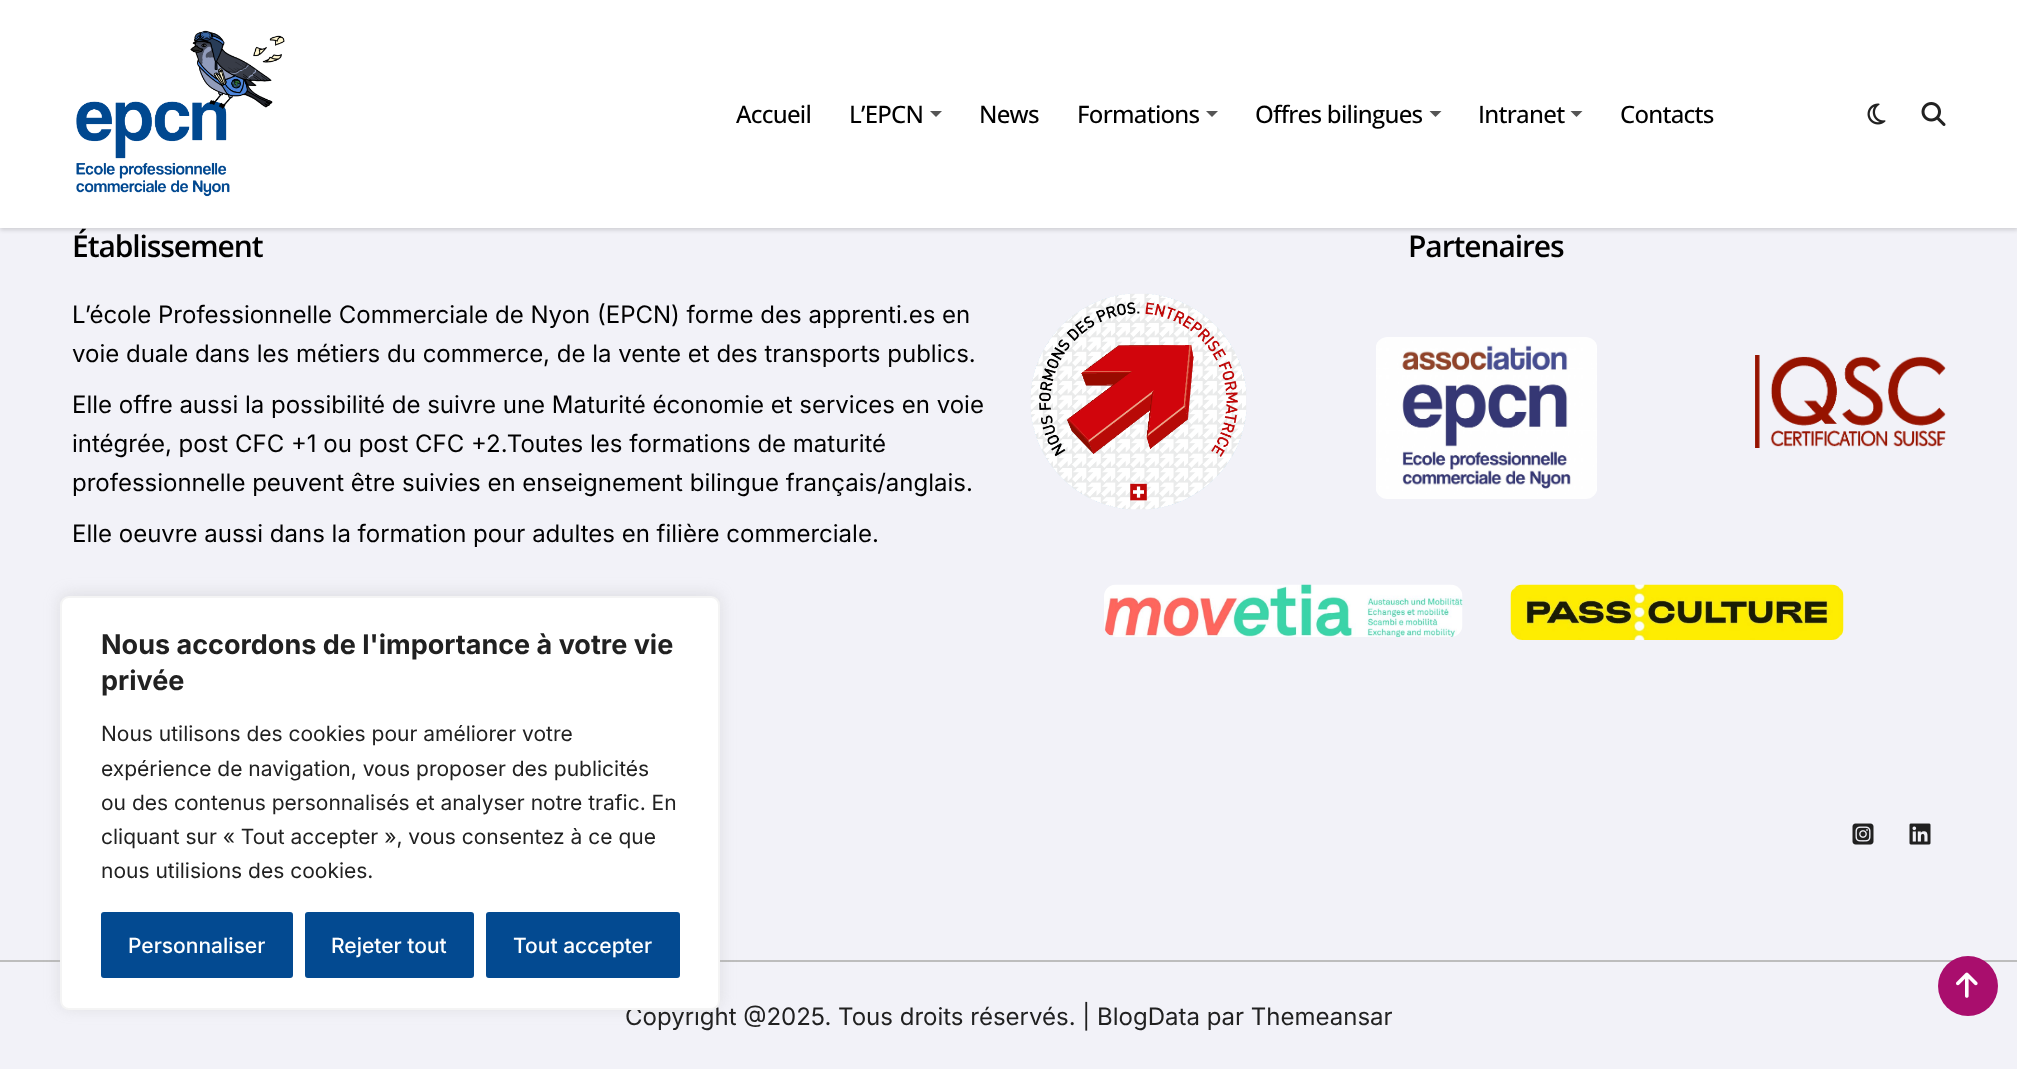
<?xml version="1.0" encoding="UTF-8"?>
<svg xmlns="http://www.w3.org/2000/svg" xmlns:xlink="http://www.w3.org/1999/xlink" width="2017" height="1069">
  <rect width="100%" height="100%" fill="#f2f2f8" />
  <rect y="2" width="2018" height="228" fill="#000000" fill-opacity="0.15" filter="blur(2px)" />
  <rect width="2017" height="228" fill="#ffffff" />
  <image x="76" y="30" width="209" height="167" xlink:href="image1.png" />
  <path d="M 930 111 h 12 l -6 6 z" fill="#555555" />
  <path d="M 1206 111 h 12 l -6 6 z" fill="#555555" />
  <path d="M 1429.5 111 h 12 l -6 6 z" fill="#555555" />
  <path d="M 1570.5 111 h 12 l -6 6 z" fill="#555555" />
  <image x="1867" y="103" width="19" height="22" xlink:href="image2.png" />
  <image x="1921" y="102" width="25" height="24" xlink:href="image3.png" />
  <image x="1030" y="293" width="217" height="217" xlink:href="image4.png" />
  <image x="1376" y="337" width="221" height="162" xlink:href="image5.png" />
  <image x="1755" y="355" width="191" height="93" xlink:href="image6.png" />
  <image x="1104" y="584" width="359" height="53" xlink:href="image7.png" />
  <image x="1510" y="584" width="334" height="56" xlink:href="image8.png" />
  <image x="1852" y="823" width="22" height="22" xlink:href="image9.png" />
  <image x="1909" y="823" width="22" height="22" xlink:href="image10.png" />
  <rect y="960" width="2017" height="2" fill="#bdbdbd" />
  <circle cx="1968" cy="986" r="30" fill="#a90e6d" />
  <image x="1956" y="972" width="22" height="26" xlink:href="image11.png" />
  <rect x="60" y="594" width="660" height="414" rx="9" fill="#acabab" fill-opacity="0.3" filter="blur(7.5px)" />
  <text x="736" y="123" style="font-family: Open Sans; font-size: 24px; font-weight: 500; letter-spacing: -0.75px; fill: #000000">Accueil</text>
  <text x="849" y="123" style="font-family: Open Sans; font-size: 24px; font-weight: 500; letter-spacing: -0.75px; fill: #000000">L’EPCN</text>
  <text x="979" y="123" style="font-family: Open Sans; font-size: 24px; font-weight: 500; letter-spacing: -0.75px; fill: #000000">News</text>
  <text x="1077" y="123" style="font-family: Open Sans; font-size: 24px; font-weight: 500; letter-spacing: -0.75px; fill: #000000">Formations</text>
  <text x="1255" y="123" style="font-family: Open Sans; font-size: 24px; font-weight: 500; letter-spacing: -0.75px; fill: #000000">Offres bilingues</text>
  <text x="1478" y="123" style="font-family: Open Sans; font-size: 24px; font-weight: 500; letter-spacing: -0.75px; fill: #000000">Intranet</text>
  <text x="1620" y="123" style="font-family: Open Sans; font-size: 24px; font-weight: 500; letter-spacing: -0.75px; fill: #000000">Contacts</text>
  <text x="72" y="257" style="font-family: Open Sans; font-size: 30px; font-weight: 600; letter-spacing: -1.1px; fill: #000000">Établissement</text>
  <text x="72" y="323" style="font-family: Inter; font-size: 24px; fill: #000000">L’école Professionnelle Commerciale de Nyon (EPCN) forme des apprenti.es en</text>
  <text x="72" y="362" style="font-family: Inter; font-size: 24px; fill: #000000">voie duale dans les métiers du commerce, de la vente et des transports publics.</text>
  <text x="72" y="413" style="font-family: Inter; font-size: 24px; fill: #000000">Elle offre aussi la possibilité de suivre une Maturité économie et services en voie</text>
  <text x="72" y="452" style="font-family: Inter; font-size: 24px; fill: #000000">intégrée, post CFC +1 ou post CFC +2.Toutes les formations de maturité</text>
  <text x="72" y="491" style="font-family: Inter; font-size: 24px; fill: #000000">professionnelle peuvent être suivies en enseignement bilingue français/anglais.</text>
  <text x="72" y="542" style="font-family: Inter; font-size: 24px; fill: #000000">Elle oeuvre aussi dans la formation pour adultes en filière commerciale.</text>
  <text x="1408" y="257" style="font-family: Open Sans; font-size: 30px; font-weight: 600; letter-spacing: -1.1px; fill: #000000">Partenaires</text>
  <text x="625" y="1025" style="font-family: Inter; font-size: 24px; fill: #212121">Copyright @2025. Tous droits réservés. | BlogData par Themeansar</text>
  <rect x="61" y="597" width="658" height="412" rx="8" fill="#ffffff" stroke="#f4f4f4" stroke-width="2" />
  <text x="101" y="654" style="font-family: Inter; font-size: 27px; font-weight: bold; fill: #212121">Nous accordons de l'importance à votre vie</text>
  <text x="101" y="690" style="font-family: Inter; font-size: 27px; font-weight: bold; fill: #212121">privée</text>
  <text x="101" y="741" style="font-family: Inter; font-size: 21px; fill: #212121">Nous utilisons des cookies pour améliorer votre</text>
  <text x="101" y="776" style="font-family: Inter; font-size: 21px; fill: #212121">expérience de navigation, vous proposer des publicités</text>
  <text x="101" y="810" style="font-family: Inter; font-size: 21px; fill: #212121">ou des contenus personnalisés et analyser notre trafic. En</text>
  <text x="101" y="844" style="font-family: Inter; font-size: 21px; fill: #212121">cliquant sur « Tout accepter », vous consentez à ce que</text>
  <text x="101" y="878" style="font-family: Inter; font-size: 21px; fill: #212121">nous utilisions des cookies.</text>
  <rect x="102.5" y="913.5" width="189" height="63" rx="1.5" fill="#034a91" stroke="#034a91" stroke-width="3" />
  <text x="128" y="953" style="font-family: Inter; font-size: 21px; font-weight: 500; fill: #ffffff">Personnaliser</text>
  <rect x="306.5" y="913.5" width="166" height="63" rx="1.5" fill="#034a91" stroke="#034a91" stroke-width="3" />
  <text x="331" y="953" style="font-family: Inter; font-size: 21px; font-weight: 500; fill: #ffffff">Rejeter tout</text>
  <rect x="487.5" y="913.5" width="191" height="63" rx="1.5" fill="#034a91" stroke="#034a91" stroke-width="3" />
  <text x="513" y="953" style="font-family: Inter; font-size: 21px; font-weight: 500; fill: #ffffff">Tout accepter</text>
</svg>
